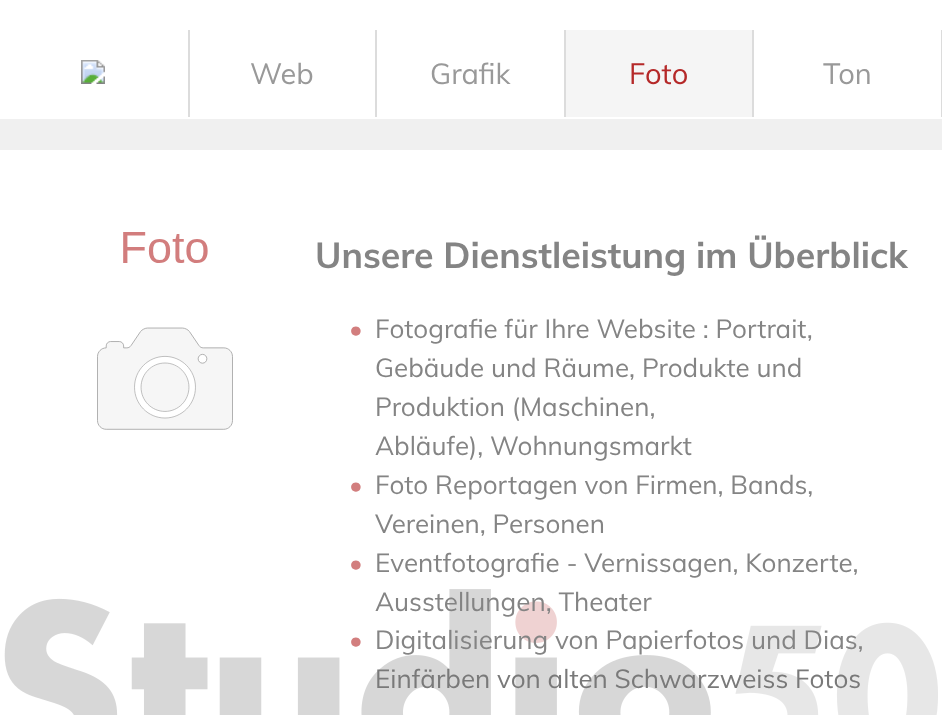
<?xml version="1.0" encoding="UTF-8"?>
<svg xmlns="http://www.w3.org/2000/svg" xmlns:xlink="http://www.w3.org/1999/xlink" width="942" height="715">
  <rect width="100%" height="100%" fill="#f0f0f0" />
  <rect width="942" height="119" fill="#ffffff" />
  <rect x="188" y="30" width="2" height="87" fill="#dcdcdc" />
  <image x="81" y="60" width="24" height="24" xlink:href="image1.png" />
  <rect x="375" y="30" width="2" height="87" fill="#dcdcdc" />
  <rect x="564" y="30" width="2" height="87" fill="#dcdcdc" />
  <rect x="566" y="30" width="186" height="87" fill="#f5f5f5" />
  <rect x="752" y="30" width="2" height="87" fill="#dcdcdc" />
  <rect x="941" y="30" width="1" height="87" fill="#dcdcdc" />
  <rect y="150" width="942" height="565" fill="#ffffff" />
  <image x="97" y="232" width="136" height="198" xlink:href="image2.png" />
  <image x="4" y="589" width="934" height="126" xlink:href="image3.png" />
  <text x="250" y="84" style="font-family: Muli; font-size: 29px; fill: #999999">Web</text>
  <text x="430" y="84" style="font-family: Muli; font-size: 29px; fill: #999999">Grafik</text>
  <text x="629" y="84" style="font-family: Muli; font-size: 29px; fill: #b52929">Foto</text>
  <text x="823" y="84" style="font-family: Muli; font-size: 29px; fill: #999999">Ton</text>
  <text x="315" y="268" style="font-family: Muli; font-size: 35.7px; font-weight: bold; fill: #848484">Unsere Dienstleistung im Überblick</text>
  <text x="349" y="338" style="font-family: Muli; font-size: 26px; font-weight: bold; fill: #d27e7e">•</text>
  <text x="375" y="338" style="font-family: Muli; font-size: 26px; fill: #848484">Fotografie für Ihre Website : Portrait,</text>
  <text x="375" y="377" style="font-family: Muli; font-size: 26px; fill: #848484">Gebäude und Räume, Produkte und</text>
  <text x="375" y="416" style="font-family: Muli; font-size: 26px; fill: #848484">Produktion (Maschinen,</text>
  <text x="375" y="455" style="font-family: Muli; font-size: 26px; fill: #848484">Abläufe), Wohnungsmarkt</text>
  <text x="349" y="494" style="font-family: Muli; font-size: 26px; font-weight: bold; fill: #d27e7e">•</text>
  <text x="375" y="494" style="font-family: Muli; font-size: 26px; fill: #848484">Foto Reportagen von Firmen, Bands,</text>
  <text x="375" y="533" style="font-family: Muli; font-size: 26px; fill: #848484">Vereinen, Personen</text>
  <text x="349" y="572" style="font-family: Muli; font-size: 26px; font-weight: bold; fill: #d27e7e">•</text>
  <text x="375" y="572" style="font-family: Muli; font-size: 26px; fill: #848484">Eventfotografie - Vernissagen, Konzerte,</text>
  <text x="375" y="611" style="font-family: Muli; font-size: 26px; fill: #848484">Ausstellungen, Theater</text>
  <text x="349" y="649" style="font-family: Muli; font-size: 26px; font-weight: bold; fill: #d27e7e">•</text>
  <text x="375" y="649" style="font-family: Muli; font-size: 26px; fill: #848484">Digitalisierung von Papierfotos und Dias,</text>
  <text x="375" y="688" style="font-family: Muli; font-size: 26px; fill: #797979">Einfärben von alten Schwarzweiss Fotos</text>
</svg>
